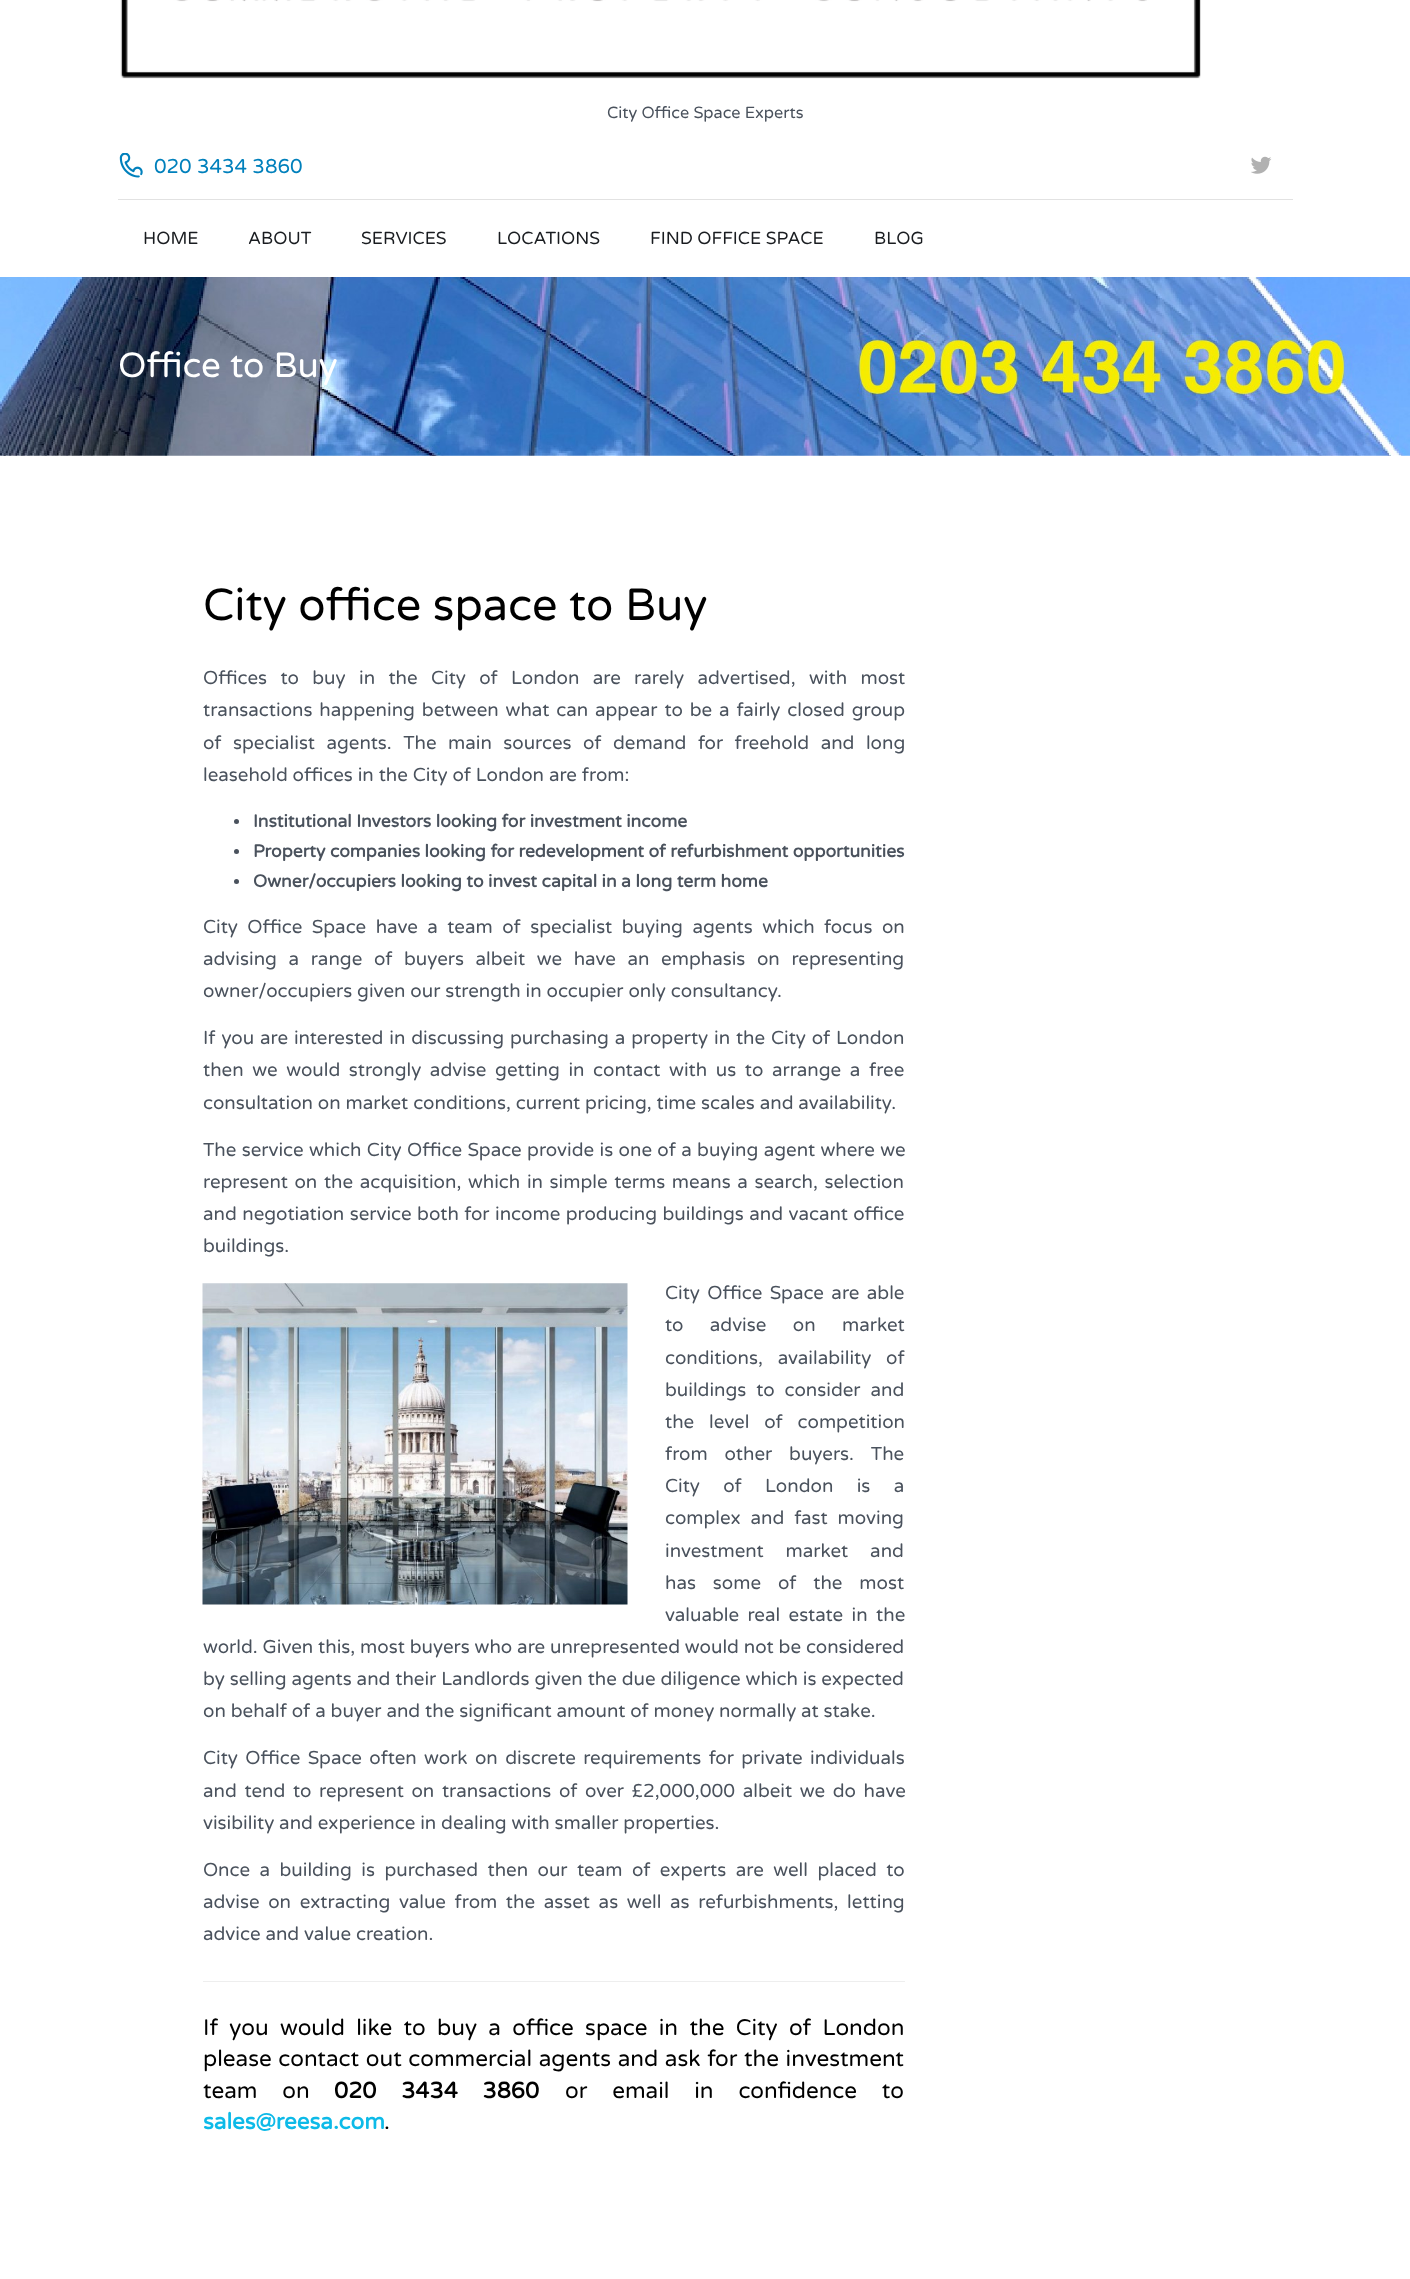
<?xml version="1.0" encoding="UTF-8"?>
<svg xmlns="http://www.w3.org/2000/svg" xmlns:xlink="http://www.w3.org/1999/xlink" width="1410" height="2279">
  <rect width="100%" height="100%" fill="#ffffff" />
  <image x="120" y="0" width="1081" height="79" xlink:href="image1.png" />
  <rect x="118" y="199" width="1175" height="1" fill="#e2e2e2" />
  <image x="119" y="153" width="24" height="25" xlink:href="image2.png" />
  <image x="1251" y="156" width="21" height="18" xlink:href="image3.png" />
  <image x="0" y="277" width="1410" height="179" xlink:href="image4.png" />
  <circle cx="236.5" cy="821.5" r="2.5" fill="#4a525d" />
  <circle cx="236.5" cy="851.5" r="2.5" fill="#4a525d" />
  <circle cx="236.5" cy="881.5" r="2.5" fill="#4a525d" />
  <image x="202" y="1283" width="426" height="322" xlink:href="image5.png" />
  <rect x="203" y="1981" width="702" height="1" fill="#eeeeee" />
  <text x="607" y="118" style="font-family: Varela Round; font-size: 16.25px; fill: #4a525d">City Office Space Experts</text>
  <text x="154" y="173" style="font-family: Varela Round; font-size: 20px; fill: #0080bc">020 3434 3860</text>
  <text x="143" y="244" style="font-family: Varela Round; font-size: 17.5px; fill: #191c20">HOME</text>
  <text x="248" y="244" style="font-family: Varela Round; font-size: 17.5px; fill: #191c20">ABOUT</text>
  <text x="361" y="244" style="font-family: Varela Round; font-size: 17.5px; fill: #191c20">SERVICES</text>
  <text x="497" y="244" style="font-family: Varela Round; font-size: 17.5px; fill: #191c20">LOCATIONS</text>
  <text x="650" y="244" style="font-family: Varela Round; font-size: 17.5px; fill: #191c20">FIND OFFICE SPACE</text>
  <text x="874" y="244" style="font-family: Varela Round; font-size: 17.5px; fill: #191c20">BLOG</text>
  <text x="118" y="377" style="font-family: Varela Round; font-size: 35px; fill: #ffffff">Office to Buy</text>
  <text x="203" y="620" style="font-family: Varela Round; font-size: 45px; fill: #000000">City office space to Buy</text>
  <text x="203" y="684" word-spacing="8.5" style="font-family: Varela Round; font-size: 18.75px; fill: #4a525d">Offices to buy in the City of London are rarely advertised, with most</text>
  <text x="203" y="716" word-spacing="2" style="font-family: Varela Round; font-size: 18.75px; fill: #4a525d">transactions happening between what can appear to be a fairly closed group</text>
  <text x="203" y="749" word-spacing="6.6" style="font-family: Varela Round; font-size: 18.75px; fill: #4a525d">of specialist agents. The main sources of demand for freehold and long</text>
  <text x="203" y="781" style="font-family: Varela Round; font-size: 18.75px; fill: #4a525d">leasehold offices in the City of London are from:</text>
  <text x="253" y="827" style="font-family: Varela Round; font-size: 17.5px; font-weight: bold; fill: #4a525d">Institutional Investors looking for investment income</text>
  <text x="253" y="857" style="font-family: Varela Round; font-size: 17.5px; font-weight: bold; fill: #4a525d">Property companies looking for redevelopment of refurbishment opportunities</text>
  <text x="253" y="887" style="font-family: Varela Round; font-size: 17.5px; font-weight: bold; fill: #4a525d">Owner/occupiers looking to invest capital in a long term home</text>
  <text x="203" y="933" word-spacing="4.6" style="font-family: Varela Round; font-size: 18.75px; fill: #4a525d">City Office Space have a team of specialist buying agents which focus on</text>
  <text x="203" y="965" word-spacing="6.75" style="font-family: Varela Round; font-size: 18.75px; fill: #4a525d">advising a range of buyers albeit we have an emphasis on representing</text>
  <text x="203" y="997" style="font-family: Varela Round; font-size: 18.75px; fill: #4a525d">owner/occupiers given our strength in occupier only consultancy.</text>
  <text x="203" y="1044" word-spacing="1" style="font-family: Varela Round; font-size: 18.75px; fill: #4a525d">If you are interested in discussing purchasing a property in the City of London</text>
  <text x="203" y="1076" word-spacing="3.75" style="font-family: Varela Round; font-size: 18.75px; fill: #4a525d">then we would strongly advise getting in contact with us to arrange a free</text>
  <text x="203" y="1109" style="font-family: Varela Round; font-size: 18.75px; fill: #4a525d">consultation on market conditions, current pricing, time scales and availability.</text>
  <text x="203" y="1156" word-spacing="0.5" style="font-family: Varela Round; font-size: 18.75px; fill: #4a525d">The service which City Office Space provide is one of a buying agent where we</text>
  <text x="203" y="1188" word-spacing="1.75" style="font-family: Varela Round; font-size: 18.75px; fill: #4a525d">represent on the acquisition, which in simple terms means a search, selection</text>
  <text x="203" y="1220" word-spacing="0.6" style="font-family: Varela Round; font-size: 18.75px; fill: #4a525d">and negotiation service both for income producing buildings and vacant office</text>
  <text x="203" y="1252" style="font-family: Varela Round; font-size: 18.75px; fill: #4a525d">buildings.</text>
  <text x="665" y="1299" word-spacing="2.5" style="font-family: Varela Round; font-size: 18.75px; fill: #4a525d">City Office Space are able</text>
  <text x="665" y="1331" word-spacing="21.5" style="font-family: Varela Round; font-size: 18.75px; fill: #4a525d">to advise on market</text>
  <text x="665" y="1364" word-spacing="10" style="font-family: Varela Round; font-size: 18.75px; fill: #4a525d">conditions, availability of</text>
  <text x="665" y="1396" word-spacing="5" style="font-family: Varela Round; font-size: 18.75px; fill: #4a525d">buildings to consider and</text>
  <text x="665" y="1428" word-spacing="10" style="font-family: Varela Round; font-size: 18.75px; fill: #4a525d">the level of competition</text>
  <text x="665" y="1460" word-spacing="12" style="font-family: Varela Round; font-size: 18.75px; fill: #4a525d">from other buyers. The</text>
  <text x="665" y="1492" word-spacing="18.5" style="font-family: Varela Round; font-size: 18.75px; fill: #4a525d">City of London is a</text>
  <text x="665" y="1524" word-spacing="5" style="font-family: Varela Round; font-size: 18.75px; fill: #4a525d">complex and fast moving</text>
  <text x="665" y="1557" word-spacing="17" style="font-family: Varela Round; font-size: 18.75px; fill: #4a525d">investment market and</text>
  <text x="665" y="1589" word-spacing="12" style="font-family: Varela Round; font-size: 18.75px; fill: #4a525d">has some of the most</text>
  <text x="665" y="1621" word-spacing="3.5" style="font-family: Varela Round; font-size: 18.75px; fill: #4a525d">valuable real estate in the</text>
  <text x="203" y="1653" style="font-family: Varela Round; font-size: 18.75px; fill: #4a525d">world. Given this, most buyers who are unrepresented would not be considered</text>
  <text x="203" y="1685" style="font-family: Varela Round; font-size: 18.75px; fill: #4a525d">by selling agents and their Landlords given the due diligence which is expected</text>
  <text x="203" y="1717" style="font-family: Varela Round; font-size: 18.75px; fill: #4a525d">on behalf of a buyer and the significant amount of money normally at stake.</text>
  <text x="203" y="1764" word-spacing="2.5" style="font-family: Varela Round; font-size: 18.75px; fill: #4a525d">City Office Space often work on discrete requirements for private individuals</text>
  <text x="203" y="1797" word-spacing="2.75" style="font-family: Varela Round; font-size: 18.75px; fill: #4a525d">and tend to represent on transactions of over £2,000,000 albeit we do have</text>
  <text x="203" y="1829" style="font-family: Varela Round; font-size: 18.75px; fill: #4a525d">visibility and experience in dealing with smaller properties.</text>
  <text x="203" y="1876" word-spacing="4.6" style="font-family: Varela Round; font-size: 18.75px; fill: #4a525d">Once a building is purchased then our team of experts are well placed to</text>
  <text x="203" y="1908" word-spacing="3.75" style="font-family: Varela Round; font-size: 18.75px; fill: #4a525d">advise on extracting value from the asset as well as refurbishments, letting</text>
  <text x="203" y="1940" style="font-family: Varela Round; font-size: 18.75px; fill: #4a525d">advice and value creation.</text>
  <text x="203" y="2035" word-spacing="5.5" style="font-family: Varela Round; font-size: 22.5px; fill: #000000">If you would like to buy a office space in the City of London</text>
  <text x="203" y="2066" word-spacing="0.75" style="font-family: Varela Round; font-size: 22.5px; fill: #000000">please contact out commercial agents and ask for the investment</text>
  <text x="203" y="2098" word-spacing="19" style="font-family: Varela Round; font-size: 22.5px; fill: #000000">team on</text>
  <text x="334" y="2098" word-spacing="19" style="font-family: Varela Round; font-size: 22.5px; font-weight: bold; fill: #000000">020 3434 3860</text>
  <text x="565" y="2098" word-spacing="19" style="font-family: Varela Round; font-size: 22.5px; fill: #000000">or email in confidence to</text>
  <text x="203" y="2129" style="font-family: Varela Round; font-size: 22.5px; font-weight: bold; fill: #0dbae8">sales@reesa.com</text>
  <text x="384" y="2129" style="font-family: Varela Round; font-size: 22.5px; fill: #000000">.</text>
</svg>
